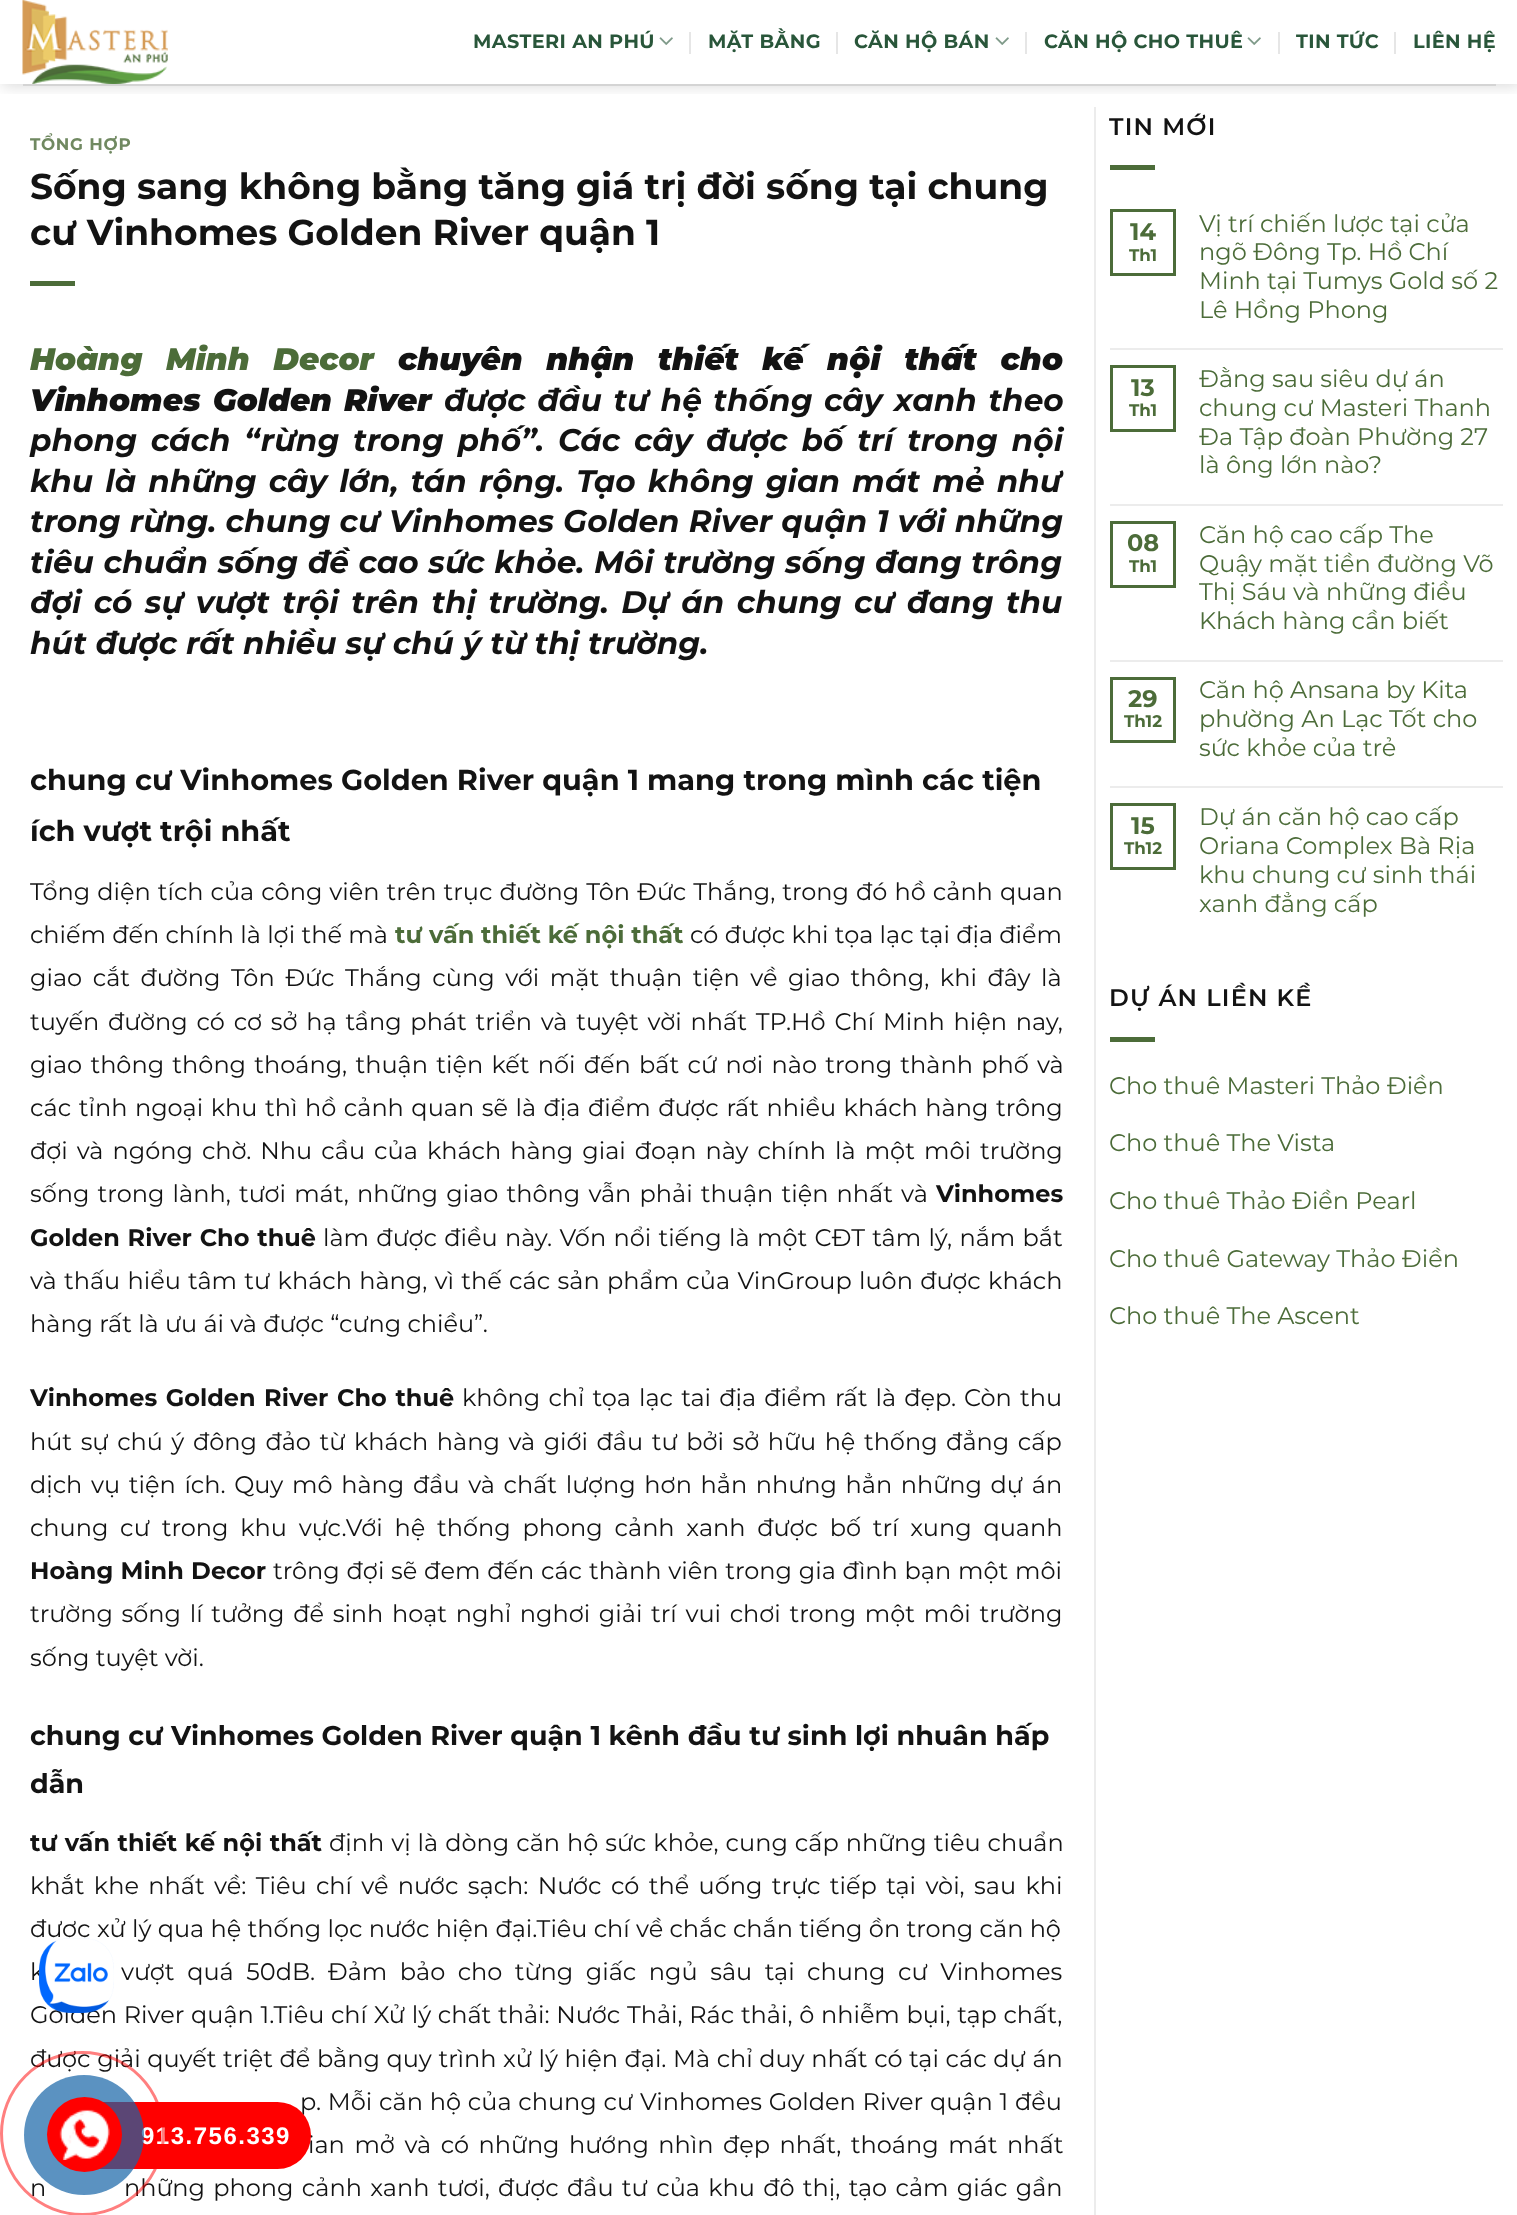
<?xml version="1.0" encoding="UTF-8"?>
<svg xmlns="http://www.w3.org/2000/svg" xmlns:xlink="http://www.w3.org/1999/xlink" width="1517" height="2215">
  <defs>
    <clipPath id="clip1"><rect x="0" y="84" width="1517" height="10" /></clipPath>
  </defs>
  <rect width="100%" height="100%" fill="#ffffff" />
  <rect x="1094" y="107" width="2" height="2108" fill="#ececec" />
  <g clip-path="url(#clip1)">
    <rect x="2" y="2" width="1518" height="84" fill="#000000" fill-opacity="0.15" filter="blur(7.5px)" />
  </g>
  <image x="22" y="0" width="146" height="84" xlink:href="image1.png" />
  <image x="659" y="37" width="14" height="8" xlink:href="image2.png" />
  <rect x="689" y="32" width="2" height="22" fill="#e6e6e6" />
  <rect x="836" y="32" width="2" height="22" fill="#e6e6e6" />
  <image x="995" y="37" width="14" height="8" xlink:href="image2.png" />
  <rect x="1025" y="32" width="2" height="22" fill="#e6e6e6" />
  <image x="1247" y="37" width="14" height="8" xlink:href="image2.png" />
  <rect x="1278" y="32" width="2" height="22" fill="#e6e6e6" />
  <rect x="1394" y="32" width="2" height="22" fill="#e6e6e6" />
  <rect x="23" y="84" width="1473" height="2" fill="#d4d4d4" />
  <rect x="30" y="281" width="45" height="5" fill="#4c6c39" />
  <rect x="1110" y="165" width="45" height="5" fill="#4c6c39" />
  <rect x="1111.5" y="210.5" width="63" height="64" fill="none" stroke="#4c6c39" stroke-width="3" />
  <rect x="1110" y="348" width="393" height="2" fill="#ececec" />
  <rect x="1111.5" y="366.5" width="63" height="64" fill="none" stroke="#4c6c39" stroke-width="3" />
  <rect x="1110" y="504" width="393" height="2" fill="#ececec" />
  <rect x="1111.5" y="522.5" width="63" height="64" fill="none" stroke="#4c6c39" stroke-width="3" />
  <rect x="1110" y="660" width="393" height="2" fill="#ececec" />
  <rect x="1111.5" y="678.5" width="63" height="63" fill="none" stroke="#4c6c39" stroke-width="3" />
  <rect x="1110" y="786" width="393" height="2" fill="#ececec" />
  <rect x="1111.5" y="804.5" width="63" height="64" fill="none" stroke="#4c6c39" stroke-width="3" />
  <rect x="1110" y="1037" width="45" height="5" fill="#4c6c39" />
  <text x="473" y="48" style="font-family: Montserrat; font-size: 19.25px; font-weight: bold; letter-spacing: 0.4px; fill: #29563a">MASTERI AN PHÚ</text>
  <text x="708" y="48" style="font-family: Montserrat; font-size: 19.25px; font-weight: bold; letter-spacing: 0.4px; fill: #29563a">MẶT BẰNG</text>
  <text x="854" y="48" style="font-family: Montserrat; font-size: 19.25px; font-weight: bold; letter-spacing: 0.4px; fill: #29563a">CĂN HỘ BÁN</text>
  <text x="1044" y="48" style="font-family: Montserrat; font-size: 19.25px; font-weight: bold; letter-spacing: 0.4px; fill: #29563a">CĂN HỘ CHO THUÊ</text>
  <text x="1296" y="48" style="font-family: Montserrat; font-size: 19.25px; font-weight: bold; letter-spacing: 0.4px; fill: #29563a">TIN TỨC</text>
  <text x="1413" y="48" style="font-family: Montserrat; font-size: 19.25px; font-weight: bold; letter-spacing: 0.4px; fill: #29563a">LIÊN HỆ</text>
  <text x="30" y="150" style="font-family: Montserrat; font-size: 16.75px; font-weight: bold; letter-spacing: 0.75px; fill: #708961">TỔNG HỢP</text>
  <text x="30" y="199" style="font-family: Montserrat; font-size: 36px; font-weight: bold; fill: #131313">Sống sang không bằng tăng giá trị đời sống tại chung</text>
  <text x="30" y="245" style="font-family: Montserrat; font-size: 36px; font-weight: bold; fill: #131313">cư Vinhomes Golden River quận 1</text>
  <text x="30" y="370" word-spacing="14.25" style="font-family: Montserrat; font-size: 31.2px; font-weight: 900; font-style: italic; fill: #4c6c39">Hoàng Minh Decor</text>
  <text x="398" y="370" word-spacing="14.25" style="font-family: Montserrat; font-size: 31.2px; font-weight: 900; font-style: italic; fill: #131313">chuyên nhận thiết kế nội thất cho</text>
  <text x="30" y="411" word-spacing="2.75" style="font-family: Montserrat; font-size: 31.2px; font-weight: 900; font-style: italic; fill: #131313">Vinhomes Golden River</text>
  <text x="444" y="411" word-spacing="2.75" style="font-family: Montserrat; font-size: 31.2px; font-weight: bold; font-style: italic; fill: #131313">được đầu tư hệ thống cây xanh theo</text>
  <text x="30" y="451" word-spacing="4.9" style="font-family: Montserrat; font-size: 31.2px; font-weight: bold; font-style: italic; fill: #131313">phong cách “rừng trong phố”. Các cây được bố trí trong nội</text>
  <text x="30" y="492" word-spacing="3.25" style="font-family: Montserrat; font-size: 31.2px; font-weight: bold; font-style: italic; fill: #131313">khu là những cây lớn, tán rộng. Tạo không gian mát mẻ như</text>
  <text x="30" y="532" word-spacing="0.25" style="font-family: Montserrat; font-size: 31.2px; font-weight: bold; font-style: italic; fill: #131313">trong rừng. chung cư Vinhomes Golden River quận 1 với những</text>
  <text x="30" y="573" word-spacing="0.8" style="font-family: Montserrat; font-size: 31.2px; font-weight: bold; font-style: italic; fill: #131313">tiêu chuẩn sống đề cao sức khỏe. Môi trường sống đang trông</text>
  <text x="30" y="613" word-spacing="3.6" style="font-family: Montserrat; font-size: 31.2px; font-weight: bold; font-style: italic; fill: #131313">đợi có sự vượt trội trên thị trường. Dự án chung cư đang thu</text>
  <text x="30" y="654" style="font-family: Montserrat; font-size: 31.2px; font-weight: bold; font-style: italic; fill: #131313">hút được rất nhiều sự chú ý từ thị trường.</text>
  <text x="30" y="790" style="font-family: Montserrat; font-size: 28.8px; font-weight: bold; fill: #131313">chung cư Vinhomes Golden River quận 1 mang trong mình các tiện</text>
  <text x="30" y="841" style="font-family: Montserrat; font-size: 28.8px; font-weight: bold; fill: #131313">ích vượt trội nhất</text>
  <text x="30" y="900" word-spacing="0.75" style="font-family: Montserrat; font-size: 24px; fill: #131313">Tổng diện tích của công viên trên trục đường Tôn Đức Thắng, trong đó hồ cảnh quan</text>
  <text x="30" y="943" style="font-family: Montserrat; font-size: 24px; fill: #131313">chiếm đến chính là lợi thế mà</text>
  <text x="395" y="943" style="font-family: Montserrat; font-size: 24px; font-weight: bold; fill: #4c6c39">tư vấn thiết kế nội thất</text>
  <text x="690" y="943" style="font-family: Montserrat; font-size: 24px; fill: #131313">có được khi tọa lạc tại địa điểm</text>
  <text x="30" y="986" word-spacing="4.25" style="font-family: Montserrat; font-size: 24px; fill: #131313">giao cắt đường Tôn Đức Thắng cùng với mặt thuận tiện về giao thông, khi đây là</text>
  <text x="30" y="1030" word-spacing="2.5" style="font-family: Montserrat; font-size: 24px; fill: #131313">tuyến đường có cơ sở hạ tầng phát triển và tuyệt vời nhất TP.Hồ Chí Minh hiện nay,</text>
  <text x="30" y="1073" word-spacing="2" style="font-family: Montserrat; font-size: 24px; fill: #131313">giao thông thông thoáng, thuận tiện kết nối đến bất cứ nơi nào trong thành phố và</text>
  <text x="30" y="1116" word-spacing="1.25" style="font-family: Montserrat; font-size: 24px; fill: #131313">các tỉnh ngoại khu thì hồ cảnh quan sẽ là địa điểm được rất nhiều khách hàng trông</text>
  <text x="30" y="1159" word-spacing="2.75" style="font-family: Montserrat; font-size: 24px; fill: #131313">đợi và ngóng chờ. Nhu cầu của khách hàng giai đoạn này chính là một môi trường</text>
  <text x="30" y="1202" word-spacing="1.9" style="font-family: Montserrat; font-size: 24px; fill: #131313">sống trong lành, tươi mát, những giao thông vẫn phải thuận tiện nhất và</text>
  <text x="936" y="1202" style="font-family: Montserrat; font-size: 24px; font-weight: bold; fill: #131313">Vinhomes</text>
  <text x="30" y="1246" word-spacing="1" style="font-family: Montserrat; font-size: 24px; font-weight: bold; fill: #131313">Golden River Cho thuê</text>
  <text x="323" y="1246" word-spacing="1" style="font-family: Montserrat; font-size: 24px; fill: #131313">làm được điều này. Vốn nổi tiếng là một CĐT tâm lý, nắm bắt</text>
  <text x="30" y="1289" word-spacing="1" style="font-family: Montserrat; font-size: 24px; fill: #131313">và thấu hiểu tâm tư khách hàng, vì thế các sản phẩm của VinGroup luôn được khách</text>
  <text x="30" y="1332" style="font-family: Montserrat; font-size: 24px; fill: #131313">hàng rất là ưu ái và được “cưng chiều”.</text>
  <text x="30" y="1406" word-spacing="1.8" style="font-family: Montserrat; font-size: 24px; font-weight: bold; fill: #131313">Vinhomes Golden River Cho thuê</text>
  <text x="462" y="1406" word-spacing="1.8" style="font-family: Montserrat; font-size: 24px; fill: #131313">không chỉ tọa lạc tai địa điểm rất là đẹp. Còn thu</text>
  <text x="30" y="1450" word-spacing="2.25" style="font-family: Montserrat; font-size: 24px; fill: #131313">hút sự chú ý đông đảo từ khách hàng và giới đầu tư bởi sở hữu hệ thống đẳng cấp</text>
  <text x="30" y="1493" word-spacing="2.4" style="font-family: Montserrat; font-size: 24px; fill: #131313">dịch vụ tiện ích. Quy mô hàng đầu và chất lượng hơn hẳn nhưng hẳn những dự án</text>
  <text x="30" y="1536" word-spacing="5.5" style="font-family: Montserrat; font-size: 24px; fill: #131313">chung cư trong khu vực.Với hệ thống phong cảnh xanh được bố trí xung quanh</text>
  <text x="30" y="1579" word-spacing="0.5" style="font-family: Montserrat; font-size: 24px; font-weight: bold; fill: #131313">Hoàng Minh Decor</text>
  <text x="273" y="1579" word-spacing="0.5" style="font-family: Montserrat; font-size: 24px; fill: #131313">trông đợi sẽ đem đến các thành viên trong gia đình bạn một môi</text>
  <text x="30" y="1622" word-spacing="2.4" style="font-family: Montserrat; font-size: 24px; fill: #131313">trường sống lí tưởng để sinh hoạt nghỉ nghơi giải trí vui chơi trong một môi trường</text>
  <text x="30" y="1666" style="font-family: Montserrat; font-size: 24px; fill: #131313">sống tuyệt vời.</text>
  <text x="30" y="1745" style="font-family: Montserrat; font-size: 27px; font-weight: bold; fill: #131313">chung cư Vinhomes Golden River quận 1 kênh đầu tư sinh lợi nhuân hấp</text>
  <text x="30" y="1793" style="font-family: Montserrat; font-size: 27px; font-weight: bold; fill: #131313">dẫn</text>
  <text x="30" y="1851" word-spacing="0.7" style="font-family: Montserrat; font-size: 24px; font-weight: bold; fill: #131313">tư vấn thiết kế nội thất</text>
  <text x="329" y="1851" word-spacing="0.7" style="font-family: Montserrat; font-size: 24px; fill: #131313">định vị là dòng căn hộ sức khỏe, cung cấp những tiêu chuẩn</text>
  <text x="30" y="1894" word-spacing="3.1" style="font-family: Montserrat; font-size: 24px; fill: #131313">khắt khe nhất về: Tiêu chí về nước sạch: Nước có thể uống trực tiếp tại vòi, sau khi</text>
  <text x="30" y="1937" style="font-family: Montserrat; font-size: 24px; fill: #131313">được xử lý qua hệ thống lọc nước hiện đại.Tiêu chí về chắc chắn tiếng ồn trong căn hộ</text>
  <text x="30" y="1980" word-spacing="6.25" style="font-family: Montserrat; font-size: 24px; fill: #131313">k</text>
  <text x="121" y="1980" word-spacing="6.25" style="font-family: Montserrat; font-size: 24px; fill: #131313">vượt quá 50dB. Đảm bảo cho từng giấc ngủ sâu tại chung cư Vinhomes</text>
  <text x="30" y="2023" word-spacing="0.4" style="font-family: Montserrat; font-size: 24px; fill: #131313">Golden River quận 1.Tiêu chí Xử lý chất thải: Nước Thải, Rác thải, ô nhiễm bụi, tạp chất,</text>
  <text x="30" y="2067" word-spacing="0.3" style="font-family: Montserrat; font-size: 24px; fill: #131313">được giải quyết triệt để bằng quy trình xử lý hiện đại. Mà chỉ duy nhất có tại các dự án</text>
  <text x="300" y="2110" word-spacing="0.5" style="font-family: Montserrat; font-size: 24px; fill: #131313">p. Mỗi căn hộ của chung cư Vinhomes Golden River quận 1 đều</text>
  <text x="308" y="2153" word-spacing="3.25" style="font-family: Montserrat; font-size: 24px; fill: #131313">ian mở và có những hướng nhìn đẹp nhất, thoáng mát nhất</text>
  <text x="30" y="2196" word-spacing="2" style="font-family: Montserrat; font-size: 24px; fill: #131313">n</text>
  <text x="124" y="2196" word-spacing="2" style="font-family: Montserrat; font-size: 24px; fill: #131313">những phong cảnh xanh tươi, được đầu tư của khu đô thị, tạo cảm giác gần</text>
  <text x="1109" y="135" style="font-family: Montserrat; font-size: 24px; font-weight: 600; letter-spacing: 1.25px; fill: #131313">TIN MỚI</text>
  <text x="1130" y="240" style="font-family: Montserrat; font-size: 24px; font-weight: bold; fill: #4c6c39">14</text>
  <text x="1129" y="261" style="font-family: Montserrat; font-size: 16.75px; font-weight: bold; fill: #4c6c39">Th1</text>
  <text x="1199" y="232" style="font-family: Montserrat; font-size: 24px; fill: #4c6c39">Vị trí chiến lược tại cửa</text>
  <text x="1199" y="260" style="font-family: Montserrat; font-size: 24px; fill: #4c6c39">ngõ Đông Tp. Hồ Chí</text>
  <text x="1199" y="289" style="font-family: Montserrat; font-size: 24px; fill: #4c6c39">Minh tại Tumys Gold số 2</text>
  <text x="1199" y="318" style="font-family: Montserrat; font-size: 24px; fill: #4c6c39">Lê Hồng Phong</text>
  <text x="1131" y="396" style="font-family: Montserrat; font-size: 24px; font-weight: bold; fill: #4c6c39">13</text>
  <text x="1129" y="416" style="font-family: Montserrat; font-size: 16.75px; font-weight: bold; fill: #4c6c39">Th1</text>
  <text x="1199" y="387" style="font-family: Montserrat; font-size: 24px; fill: #4c6c39">Đằng sau siêu dự án</text>
  <text x="1199" y="416" style="font-family: Montserrat; font-size: 24px; fill: #4c6c39">chung cư Masteri Thanh</text>
  <text x="1199" y="445" style="font-family: Montserrat; font-size: 24px; fill: #4c6c39">Đa Tập đoàn Phường 27</text>
  <text x="1199" y="473" style="font-family: Montserrat; font-size: 24px; fill: #4c6c39">là ông lớn nào?</text>
  <text x="1127" y="551" style="font-family: Montserrat; font-size: 24px; font-weight: bold; fill: #4c6c39">08</text>
  <text x="1129" y="572" style="font-family: Montserrat; font-size: 16.75px; font-weight: bold; fill: #4c6c39">Th1</text>
  <text x="1199" y="543" style="font-family: Montserrat; font-size: 24px; fill: #4c6c39">Căn hộ cao cấp The</text>
  <text x="1199" y="572" style="font-family: Montserrat; font-size: 24px; fill: #4c6c39">Quậy mặt tiền đường Võ</text>
  <text x="1199" y="600" style="font-family: Montserrat; font-size: 24px; fill: #4c6c39">Thị Sáu và những điều</text>
  <text x="1199" y="629" style="font-family: Montserrat; font-size: 24px; fill: #4c6c39">Khách hàng cần biết</text>
  <text x="1128" y="707" style="font-family: Montserrat; font-size: 24px; font-weight: bold; fill: #4c6c39">29</text>
  <text x="1124" y="727" style="font-family: Montserrat; font-size: 16.75px; font-weight: bold; fill: #4c6c39">Th12</text>
  <text x="1199" y="698" style="font-family: Montserrat; font-size: 24px; fill: #4c6c39">Căn hộ Ansana by Kita</text>
  <text x="1199" y="727" style="font-family: Montserrat; font-size: 24px; fill: #4c6c39">phường An Lạc Tốt cho</text>
  <text x="1199" y="756" style="font-family: Montserrat; font-size: 24px; fill: #4c6c39">sức khỏe của trẻ</text>
  <text x="1131" y="834" style="font-family: Montserrat; font-size: 24px; font-weight: bold; fill: #4c6c39">15</text>
  <text x="1124" y="854" style="font-family: Montserrat; font-size: 16.75px; font-weight: bold; fill: #4c6c39">Th12</text>
  <text x="1199" y="825" style="font-family: Montserrat; font-size: 24px; fill: #4c6c39">Dự án căn hộ cao cấp</text>
  <text x="1199" y="854" style="font-family: Montserrat; font-size: 24px; fill: #4c6c39">Oriana Complex Bà Rịa</text>
  <text x="1199" y="883" style="font-family: Montserrat; font-size: 24px; fill: #4c6c39">khu chung cư sinh thái</text>
  <text x="1199" y="912" style="font-family: Montserrat; font-size: 24px; fill: #4c6c39">xanh đẳng cấp</text>
  <text x="1109" y="1006" style="font-family: Montserrat; font-size: 24px; font-weight: 600; letter-spacing: 1.25px; fill: #131313">DỰ ÁN LIỀN KỀ</text>
  <text x="1109" y="1094" style="font-family: Montserrat; font-size: 24px; fill: #4c6c39">Cho thuê Masteri Thảo Điền</text>
  <text x="1109" y="1151" style="font-family: Montserrat; font-size: 24px; fill: #4c6c39">Cho thuê The Vista</text>
  <text x="1109" y="1209" style="font-family: Montserrat; font-size: 24px; fill: #4c6c39">Cho thuê Thảo Điền Pearl</text>
  <text x="1109" y="1267" style="font-family: Montserrat; font-size: 24px; fill: #4c6c39">Cho thuê Gateway Thảo Điền</text>
  <text x="1109" y="1324" style="font-family: Montserrat; font-size: 24px; fill: #4c6c39">Cho thuê The Ascent</text>
  <image x="39" y="1938" width="75" height="75" xlink:href="image3.png" />
  <rect x="63" y="2102" width="248" height="67" rx="33.5" fill="#ff0000" />
  <text x="141" y="2144" style="font-family: Liberation Sans; font-size: 24px; font-weight: bold; letter-spacing: 1.5px; fill: #ffffff">913.756.339</text>
  <circle cx="82.5" cy="2133.5" r="81" fill="none" stroke="#ff0000" stroke-opacity="0.5" stroke-width="3" />
  <circle cx="84" cy="2135" r="60" fill="#1564a7" fill-opacity="0.7" />
  <circle cx="84.5" cy="2134.5" r="37.5" fill="#ff0000" />
  <image x="59" y="2109" width="51" height="51" xlink:href="image4.png" />
</svg>
